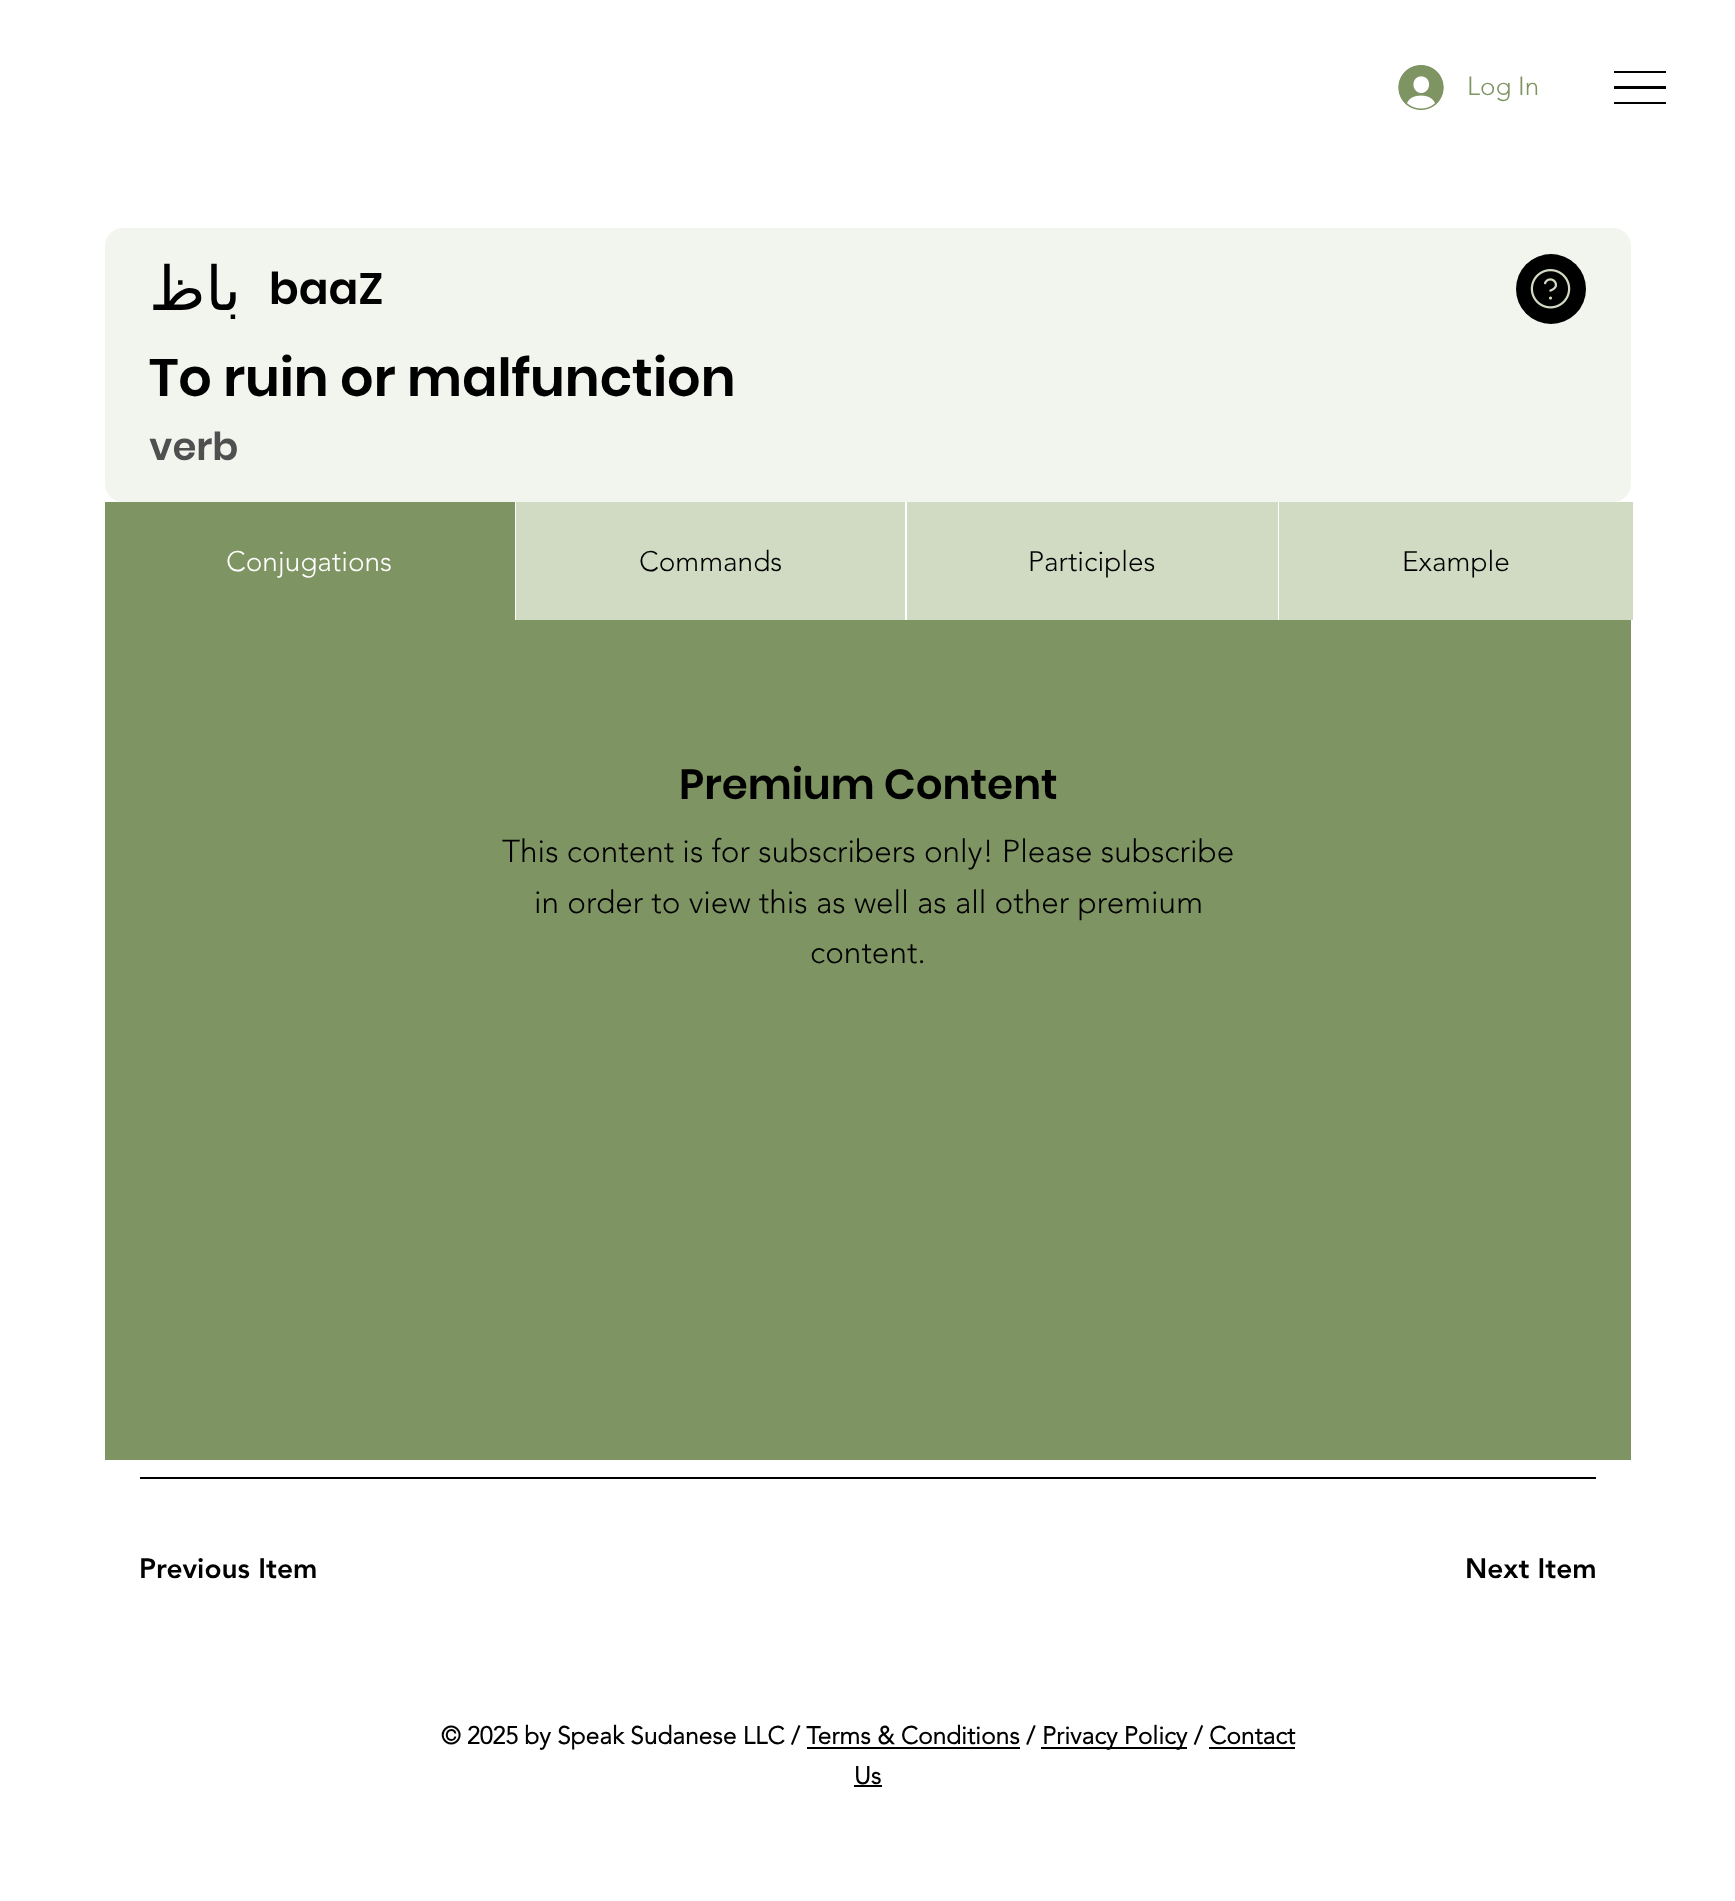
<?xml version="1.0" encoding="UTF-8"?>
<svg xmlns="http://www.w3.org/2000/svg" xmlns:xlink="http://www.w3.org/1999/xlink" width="1735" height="1901">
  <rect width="100%" height="100%" fill="#ffffff" />
  <image x="1398" y="65" width="46" height="45" xlink:href="image1.png" />
  <rect x="1614" y="71" width="52" height="2" fill="#000000" />
  <rect x="1614" y="86" width="52" height="3" fill="#000000" />
  <rect x="1614" y="102" width="52" height="2" fill="#000000" />
  <rect x="105" y="228" width="1526" height="274" rx="18" fill="#f2f5ee" />
  <circle cx="1551" cy="289" r="35" fill="#000000" />
  <image x="1530" y="269" width="41" height="40" xlink:href="image2.png" />
  <rect x="105" y="502" width="410" height="118" fill="#7f9463" />
  <rect x="516" y="502" width="389" height="118" fill="#d1dbc3" />
  <rect x="907" y="502" width="371" height="118" fill="#d1dbc3" />
  <rect x="1279" y="502" width="354" height="118" fill="#d1dbc3" />
  <rect x="105" y="620" width="1526" height="840" fill="#7f9463" />
  <rect x="140" y="1477" width="1456" height="2" fill="#000000" />
  <rect x="1041" y="1747" width="146" height="2" fill="#000000" />
  <rect x="807" y="1747" width="213" height="2" fill="#000000" />
  <rect x="1209" y="1747" width="86" height="2" fill="#000000" />
  <rect x="854" y="1785" width="28" height="2" fill="#000000" />
  <text x="1467" y="95" style="font-family: 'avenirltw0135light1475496'; font-size: 26px; font-weight: 300; fill: #7f9463">Log In</text>
  <text x="241" y="310" style="font-family: DejaVu Sans; font-size: 61px; direction: rtl; fill: #000000">باظ</text>
  <text x="269" y="304" style="font-family: Poppins; font-size: 44px; font-weight: 600; fill: #000000">baaZ</text>
  <text x="149" y="396" style="font-family: Poppins; font-size: 52.5px; font-weight: 600; fill: #000000">To ruin or malfunction</text>
  <text x="149" y="460" style="font-family: Poppins; font-size: 38.5px; font-weight: 600; fill: #4f4f4f">verb</text>
  <text x="226" y="571" style="font-family: 'avenirltw0135light1475496'; font-size: 28px; font-weight: 300; fill: #ffffff">Conjugations</text>
  <text x="639" y="571" style="font-family: 'avenirltw0135light1475496'; font-size: 28px; font-weight: 300; fill: #000000">Commands</text>
  <text x="1028" y="571" style="font-family: 'avenirltw0135light1475496'; font-size: 28px; font-weight: 300; fill: #000000">Participles</text>
  <text x="1402" y="571" style="font-family: 'avenirltw0135light1475496'; font-size: 28px; font-weight: 300; fill: #000000">Example</text>
  <text x="679" y="799" style="font-family: Poppins; font-size: 42px; font-weight: 600; fill: #000000">Premium Content</text>
  <text x="502" y="862" style="font-family: 'avenirltw0135light1475496'; font-size: 31.5px; font-weight: 300; fill: #000000">This content is for subscribers only! Please subscribe</text>
  <text x="534" y="913" style="font-family: 'avenirltw0135light1475496'; font-size: 31.5px; font-weight: 300; fill: #000000">in order to view this as well as all other premium</text>
  <text x="810" y="963" style="font-family: 'avenirltw0135light1475496'; font-size: 31.5px; font-weight: 300; fill: #000000">content.</text>
  <text x="139" y="1578" style="font-family: 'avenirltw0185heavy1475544'; font-size: 28px; font-weight: 900; fill: #000000">Previous Item</text>
  <text x="1465" y="1578" style="font-family: 'avenirltw0185heavy1475544'; font-size: 28px; font-weight: 900; fill: #000000">Next Item</text>
  <text x="441" y="1744" style="font-family: 'avenirltw0135light1475496'; font-size: 24.5px; font-weight: bold; fill: #000000">© 2025 by Speak Sudanese LLC / Terms &amp; Conditions /</text>
  <text x="1042" y="1744" style="font-family: 'avenirltw0135light1475496'; font-size: 24.5px; font-weight: bold; fill: #000000">Privacy Policy / Contact</text>
  <text x="854" y="1784" style="font-family: 'avenirltw0135light1475496'; font-size: 24.5px; font-weight: bold; fill: #000000">Us</text>
</svg>
